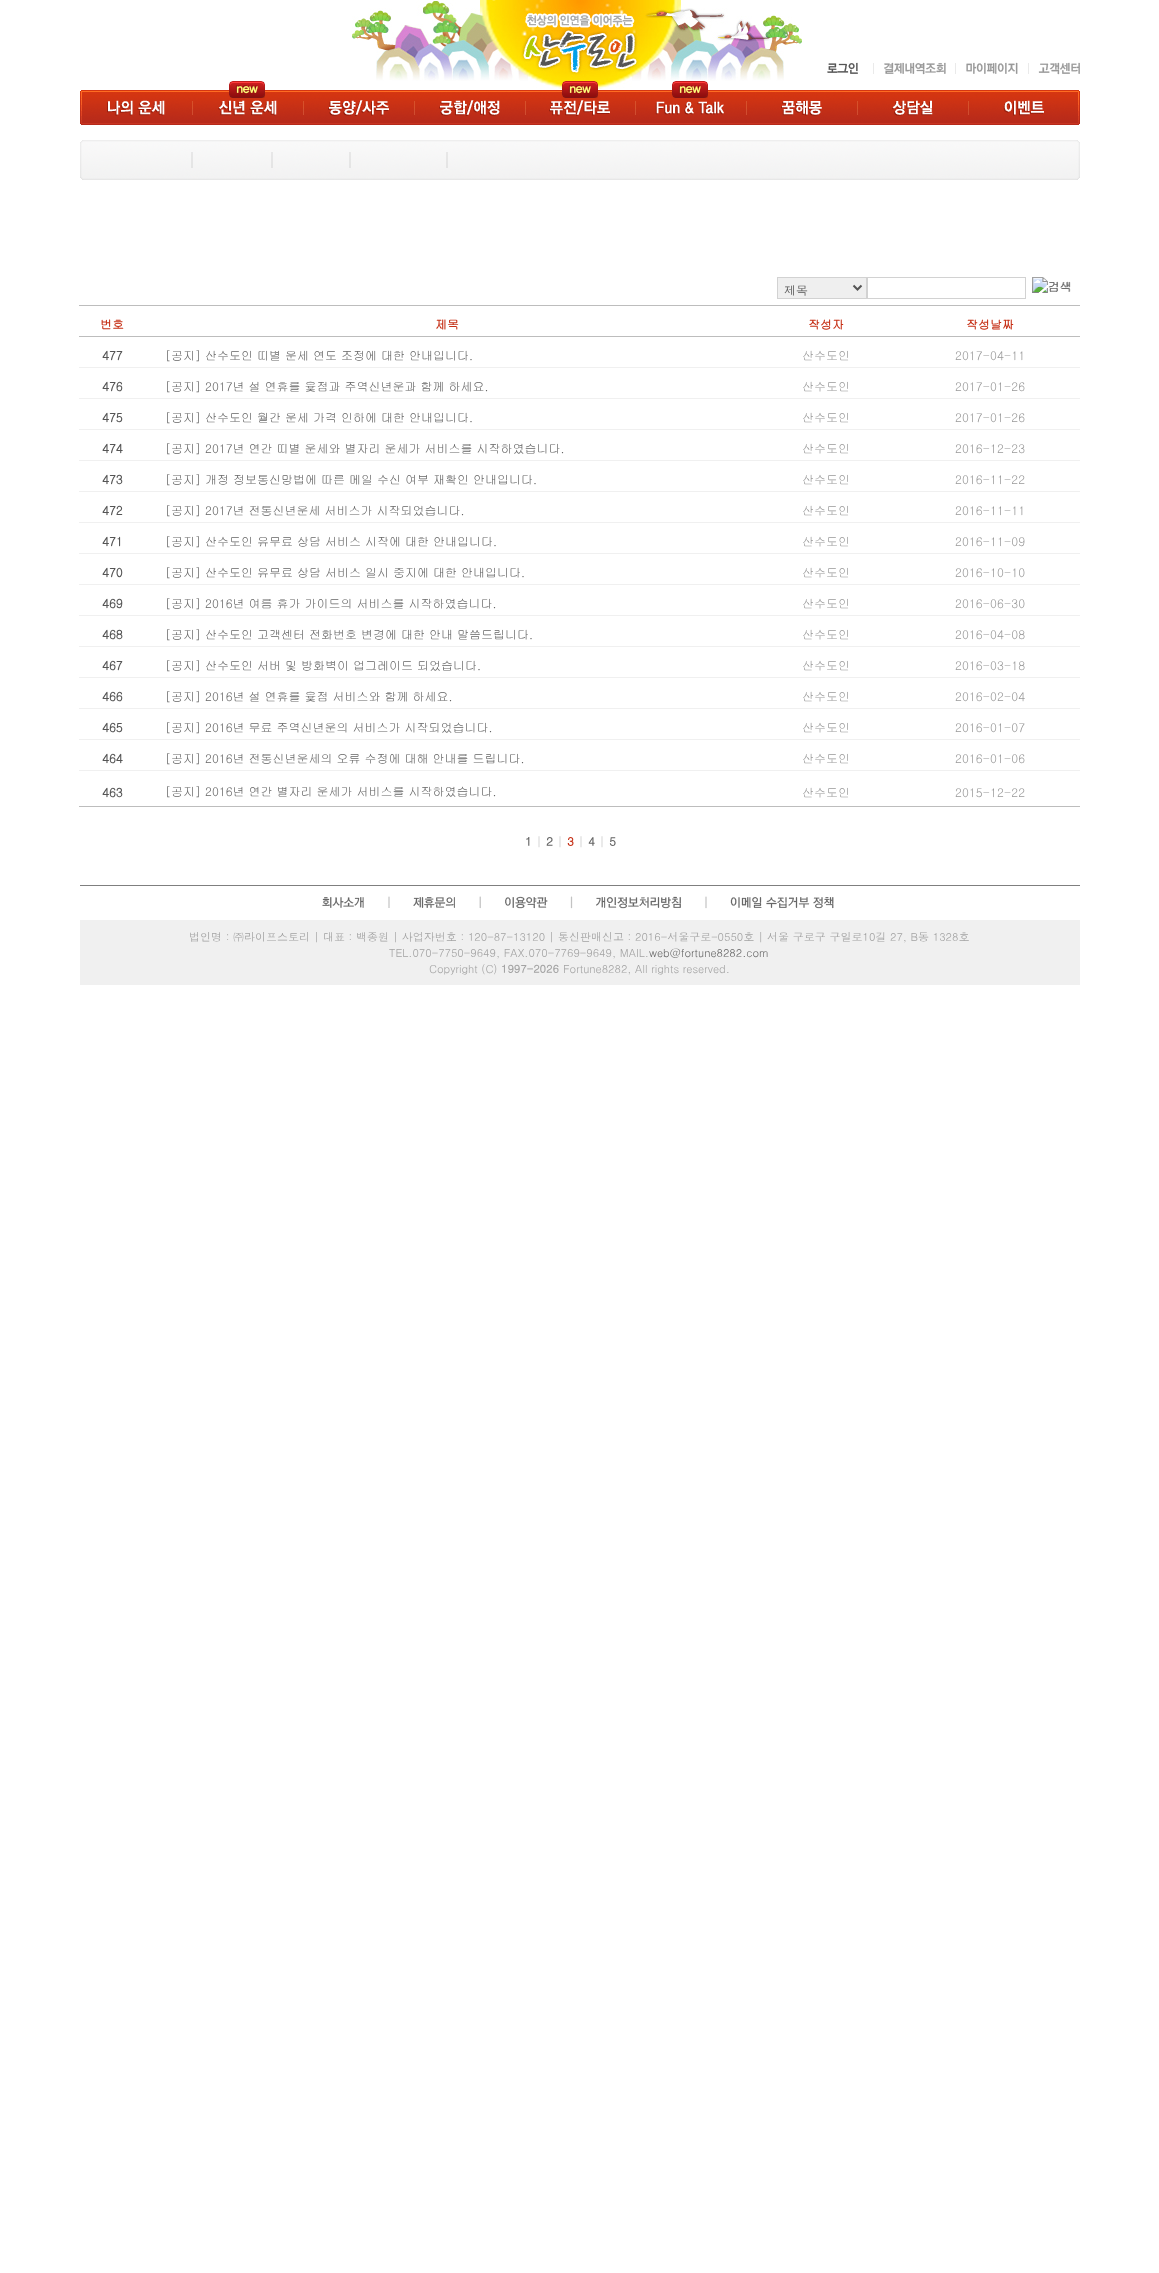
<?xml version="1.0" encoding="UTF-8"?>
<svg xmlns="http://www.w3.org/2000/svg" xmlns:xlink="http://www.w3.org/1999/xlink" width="1159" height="2273">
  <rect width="100%" height="100%" fill="#ffffff" />
  <image x="352" y="0" width="450" height="89" xlink:href="image1.png" />
  <image x="827" y="62" width="31" height="12" xlink:href="image2.png" />
  <image x="873" y="62" width="73" height="13" xlink:href="image3.png" />
  <image x="955" y="62" width="63" height="12" xlink:href="image4.png" />
  <image x="1028" y="62" width="52" height="13" xlink:href="image5.png" />
  <image x="80" y="90" width="112" height="35" xlink:href="image6.png" />
  <image x="192" y="90" width="111" height="35" xlink:href="image8.png" />
  <image x="229" y="81" width="36" height="17" xlink:href="image7.png" />
  <image x="303" y="90" width="111" height="35" xlink:href="image9.png" />
  <image x="414" y="90" width="111" height="35" xlink:href="image10.png" />
  <image x="525" y="90" width="110" height="35" xlink:href="image12.png" />
  <image x="562" y="81" width="36" height="17" xlink:href="image11.png" />
  <image x="635" y="90" width="111" height="35" xlink:href="image14.png" />
  <image x="672" y="81" width="36" height="17" xlink:href="image13.png" />
  <image x="746" y="90" width="111" height="35" xlink:href="image15.png" />
  <image x="857" y="90" width="111" height="35" xlink:href="image16.png" />
  <image x="968" y="90" width="112" height="35" xlink:href="image17.png" />
  <image x="80" y="140" width="1000" height="40" xlink:href="image18.png" />
  <rect x="777.5" y="277.5" width="89" height="21" fill="#efefef" stroke="#d2d2d2" />
  <path d="M 853.5 285.5 l 4 4 l 4 -4" fill="none" stroke="#555555" stroke-width="2" />
  <rect x="867.5" y="277.5" width="158" height="21" fill="none" stroke="#d2d2d2" />
  <image x="1032" y="277" width="38" height="16" xlink:href="image19.png" />
  <rect x="79" y="305" width="1001" height="1" fill="#bdbdbd" />
  <rect x="79" y="336" width="1001" height="1" fill="#bdbdbd" />
  <rect x="79" y="367" width="1001" height="1" fill="#f0f0f0" />
  <rect x="79" y="398" width="1001" height="1" fill="#f0f0f0" />
  <rect x="79" y="429" width="1001" height="1" fill="#f0f0f0" />
  <rect x="79" y="460" width="1001" height="1" fill="#f0f0f0" />
  <rect x="79" y="491" width="1001" height="1" fill="#f0f0f0" />
  <rect x="79" y="522" width="1001" height="1" fill="#f0f0f0" />
  <rect x="79" y="553" width="1001" height="1" fill="#f0f0f0" />
  <rect x="79" y="584" width="1001" height="1" fill="#f0f0f0" />
  <rect x="79" y="615" width="1001" height="1" fill="#f0f0f0" />
  <rect x="79" y="646" width="1001" height="1" fill="#f0f0f0" />
  <rect x="79" y="677" width="1001" height="1" fill="#f0f0f0" />
  <rect x="79" y="708" width="1001" height="1" fill="#f0f0f0" />
  <rect x="79" y="739" width="1001" height="1" fill="#f0f0f0" />
  <rect x="79" y="770" width="1001" height="1" fill="#f0f0f0" />
  <rect x="79" y="806" width="1001" height="1" fill="#bdbdbd" />
  <rect x="80" y="885" width="1000" height="1" fill="#7f7f7f" />
  <image x="322" y="897" width="42" height="11" xlink:href="image20.png" />
  <image x="388" y="896" width="67" height="12" xlink:href="image21.png" />
  <image x="479" y="896" width="92" height="13" xlink:href="image22.png" />
  <image x="571" y="896" width="110" height="13" xlink:href="image23.png" />
  <image x="705" y="896" width="129" height="13" xlink:href="image24.png" />
  <rect x="80" y="920" width="1000" height="65" fill="#f0f0f0" />
  <text x="784" y="295" style="font-family: Dotum; font-size: 12px; fill: #555555">제목</text>
  <text x="1048" y="291" style="font-family: Gulim; font-size: 12px; fill: #666666">검색</text>
  <text x="100" y="329" style="font-family: Gulim; font-size: 12px; font-weight: bold; fill: #c63016">번호</text>
  <text x="435" y="329" style="font-family: Gulim; font-size: 12px; font-weight: bold; fill: #c63016">제목</text>
  <text x="808" y="329" style="font-family: Gulim; font-size: 12px; font-weight: bold; fill: #c63016">작성자</text>
  <text x="966" y="329" style="font-family: Gulim; font-size: 12px; font-weight: bold; fill: #c63016">작성날짜</text>
  <text x="102" y="360" style="font-family: Gulim; font-size: 12px; font-weight: bold; fill: #555555">477</text>
  <text x="165" y="360" style="font-family: Gulim; font-size: 12px; fill: #666666">[공지] 산수도인 띠별 운세 연도 조정에 대한 안내입니다.</text>
  <text x="802" y="360" style="font-family: Gulim; font-size: 12px; fill: #999999">산수도인</text>
  <text x="955" y="360" style="font-family: Gulim; font-size: 12px; fill: #999999">2017-04-11</text>
  <text x="102" y="391" style="font-family: Gulim; font-size: 12px; font-weight: bold; fill: #555555">476</text>
  <text x="165" y="391" style="font-family: Gulim; font-size: 12px; fill: #666666">[공지] 2017년 설 연휴를 윷점과 주역신년운과 함께 하세요.</text>
  <text x="802" y="391" style="font-family: Gulim; font-size: 12px; fill: #999999">산수도인</text>
  <text x="955" y="391" style="font-family: Gulim; font-size: 12px; fill: #999999">2017-01-26</text>
  <text x="102" y="422" style="font-family: Gulim; font-size: 12px; font-weight: bold; fill: #555555">475</text>
  <text x="165" y="422" style="font-family: Gulim; font-size: 12px; fill: #666666">[공지] 산수도인 월간 운세 가격 인하에 대한 안내입니다.</text>
  <text x="802" y="422" style="font-family: Gulim; font-size: 12px; fill: #999999">산수도인</text>
  <text x="955" y="422" style="font-family: Gulim; font-size: 12px; fill: #999999">2017-01-26</text>
  <text x="102" y="453" style="font-family: Gulim; font-size: 12px; font-weight: bold; fill: #555555">474</text>
  <text x="165" y="453" style="font-family: Gulim; font-size: 12px; fill: #666666">[공지] 2017년 연간 띠별 운세와 별자리 운세가 서비스를 시작하였습니다.</text>
  <text x="802" y="453" style="font-family: Gulim; font-size: 12px; fill: #999999">산수도인</text>
  <text x="955" y="453" style="font-family: Gulim; font-size: 12px; fill: #999999">2016-12-23</text>
  <text x="102" y="484" style="font-family: Gulim; font-size: 12px; font-weight: bold; fill: #555555">473</text>
  <text x="165" y="484" style="font-family: Gulim; font-size: 12px; fill: #666666">[공지] 개정 정보통신망법에 따른 메일 수신 여부 재확인 안내입니다.</text>
  <text x="802" y="484" style="font-family: Gulim; font-size: 12px; fill: #999999">산수도인</text>
  <text x="955" y="484" style="font-family: Gulim; font-size: 12px; fill: #999999">2016-11-22</text>
  <text x="102" y="515" style="font-family: Gulim; font-size: 12px; font-weight: bold; fill: #555555">472</text>
  <text x="165" y="515" style="font-family: Gulim; font-size: 12px; fill: #666666">[공지] 2017년 전통신년운세 서비스가 시작되었습니다.</text>
  <text x="802" y="515" style="font-family: Gulim; font-size: 12px; fill: #999999">산수도인</text>
  <text x="955" y="515" style="font-family: Gulim; font-size: 12px; fill: #999999">2016-11-11</text>
  <text x="102" y="546" style="font-family: Gulim; font-size: 12px; font-weight: bold; fill: #555555">471</text>
  <text x="165" y="546" style="font-family: Gulim; font-size: 12px; fill: #666666">[공지] 산수도인 유무료 상담 서비스 시작에 대한 안내입니다.</text>
  <text x="802" y="546" style="font-family: Gulim; font-size: 12px; fill: #999999">산수도인</text>
  <text x="955" y="546" style="font-family: Gulim; font-size: 12px; fill: #999999">2016-11-09</text>
  <text x="102" y="577" style="font-family: Gulim; font-size: 12px; font-weight: bold; fill: #555555">470</text>
  <text x="165" y="577" style="font-family: Gulim; font-size: 12px; fill: #666666">[공지] 산수도인 유무료 상담 서비스 일시 중지에 대한 안내입니다.</text>
  <text x="802" y="577" style="font-family: Gulim; font-size: 12px; fill: #999999">산수도인</text>
  <text x="955" y="577" style="font-family: Gulim; font-size: 12px; fill: #999999">2016-10-10</text>
  <text x="102" y="608" style="font-family: Gulim; font-size: 12px; font-weight: bold; fill: #555555">469</text>
  <text x="165" y="608" style="font-family: Gulim; font-size: 12px; fill: #666666">[공지] 2016년 여름 휴가 가이드의 서비스를 시작하였습니다.</text>
  <text x="802" y="608" style="font-family: Gulim; font-size: 12px; fill: #999999">산수도인</text>
  <text x="955" y="608" style="font-family: Gulim; font-size: 12px; fill: #999999">2016-06-30</text>
  <text x="102" y="639" style="font-family: Gulim; font-size: 12px; font-weight: bold; fill: #555555">468</text>
  <text x="165" y="639" style="font-family: Gulim; font-size: 12px; fill: #666666">[공지] 산수도인 고객센터 전화번호 변경에 대한 안내 말씀드립니다.</text>
  <text x="802" y="639" style="font-family: Gulim; font-size: 12px; fill: #999999">산수도인</text>
  <text x="955" y="639" style="font-family: Gulim; font-size: 12px; fill: #999999">2016-04-08</text>
  <text x="102" y="670" style="font-family: Gulim; font-size: 12px; font-weight: bold; fill: #555555">467</text>
  <text x="165" y="670" style="font-family: Gulim; font-size: 12px; fill: #666666">[공지] 산수도인 서버 및 방화벽이 업그레이드 되었습니다.</text>
  <text x="802" y="670" style="font-family: Gulim; font-size: 12px; fill: #999999">산수도인</text>
  <text x="955" y="670" style="font-family: Gulim; font-size: 12px; fill: #999999">2016-03-18</text>
  <text x="102" y="701" style="font-family: Gulim; font-size: 12px; font-weight: bold; fill: #555555">466</text>
  <text x="165" y="701" style="font-family: Gulim; font-size: 12px; fill: #666666">[공지] 2016년 설 연휴를 윷점 서비스와 함께 하세요.</text>
  <text x="802" y="701" style="font-family: Gulim; font-size: 12px; fill: #999999">산수도인</text>
  <text x="955" y="701" style="font-family: Gulim; font-size: 12px; fill: #999999">2016-02-04</text>
  <text x="102" y="732" style="font-family: Gulim; font-size: 12px; font-weight: bold; fill: #555555">465</text>
  <text x="165" y="732" style="font-family: Gulim; font-size: 12px; fill: #666666">[공지] 2016년 무료 주역신년운의 서비스가 시작되었습니다.</text>
  <text x="802" y="732" style="font-family: Gulim; font-size: 12px; fill: #999999">산수도인</text>
  <text x="955" y="732" style="font-family: Gulim; font-size: 12px; fill: #999999">2016-01-07</text>
  <text x="102" y="763" style="font-family: Gulim; font-size: 12px; font-weight: bold; fill: #555555">464</text>
  <text x="165" y="763" style="font-family: Gulim; font-size: 12px; fill: #666666">[공지] 2016년 전통신년운세의 오류 수정에 대해 안내를 드립니다.</text>
  <text x="802" y="763" style="font-family: Gulim; font-size: 12px; fill: #999999">산수도인</text>
  <text x="955" y="763" style="font-family: Gulim; font-size: 12px; fill: #999999">2016-01-06</text>
  <text x="102" y="797" style="font-family: Gulim; font-size: 12px; font-weight: bold; fill: #555555">463</text>
  <text x="165" y="796" style="font-family: Gulim; font-size: 12px; fill: #666666">[공지] 2016년 연간 별자리 운세가 서비스를 시작하였습니다.</text>
  <text x="802" y="797" style="font-family: Gulim; font-size: 12px; fill: #999999">산수도인</text>
  <text x="955" y="797" style="font-family: Gulim; font-size: 12px; fill: #999999">2015-12-22</text>
  <text x="525" y="846" style="font-family: Dotum; font-size: 12px; font-weight: bold; fill: #666666">1</text>
  <text x="536" y="846" style="font-family: Dotum; font-size: 12px; fill: #cccccc">|</text>
  <text x="546" y="846" style="font-family: Dotum; font-size: 12px; font-weight: bold; fill: #666666">2</text>
  <text x="557" y="846" style="font-family: Dotum; font-size: 12px; fill: #cccccc">|</text>
  <text x="567" y="846" style="font-family: Dotum; font-size: 12px; font-weight: bold; fill: #c63016">3</text>
  <text x="578" y="846" style="font-family: Dotum; font-size: 12px; fill: #cccccc">|</text>
  <text x="588" y="846" style="font-family: Dotum; font-size: 12px; font-weight: bold; fill: #666666">4</text>
  <text x="599" y="846" style="font-family: Dotum; font-size: 12px; fill: #cccccc">|</text>
  <text x="609" y="846" style="font-family: Dotum; font-size: 12px; font-weight: bold; fill: #666666">5</text>
  <text x="189" y="941" style="font-family: Dotum; font-size: 11px; fill: #a3a3a3">법인명 : ㈜라이프스토리 | 대표 : 백종원 | 사업자번호 : 120-87-13120 | 통신판매신고 : 2016-서울구로-0550호 | 서울 구로구 구일로10길 27, B동 1328호</text>
  <text x="389" y="957" style="font-family: Dotum; font-size: 11px; fill: #a3a3a3">TEL.070-7750-9649, FAX.070-7769-9649, MAIL.</text>
  <text x="649" y="957" style="font-family: Dotum; font-size: 11px; fill: #666666">web@fortune8282.com</text>
  <text x="429" y="973" style="font-family: Dotum; font-size: 11px; fill: #a3a3a3">Copyright (C)</text>
  <text x="501" y="973" style="font-family: Dotum; font-size: 11px; font-weight: bold; fill: #a3a3a3">1997-2026</text>
  <text x="563" y="973" style="font-family: Dotum; font-size: 11px; fill: #a3a3a3">Fortune8282, All rights reserved.</text>
</svg>
